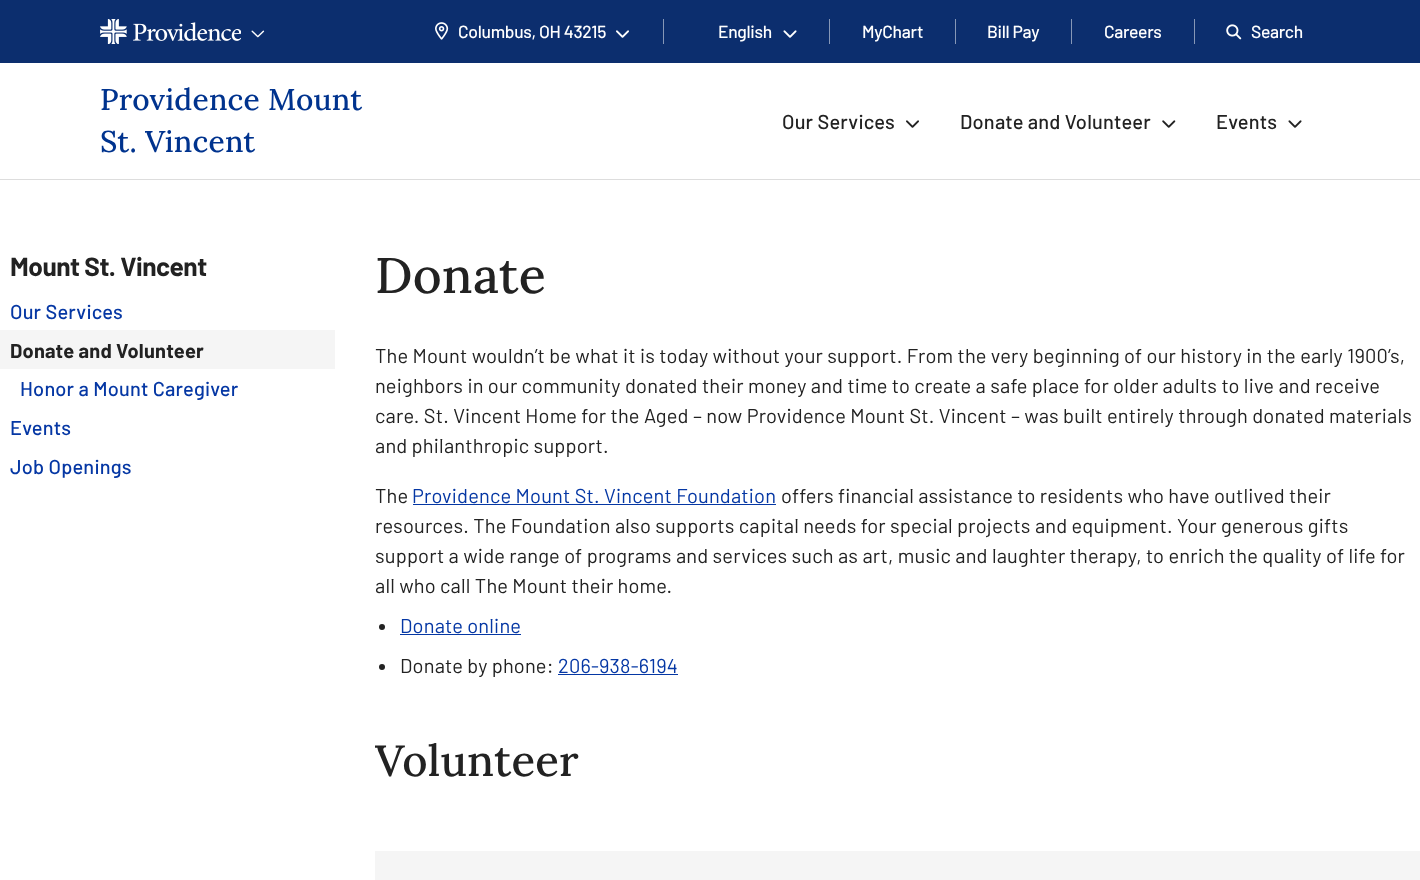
<?xml version="1.0" encoding="UTF-8"?>
<svg xmlns="http://www.w3.org/2000/svg" xmlns:xlink="http://www.w3.org/1999/xlink" width="1420" height="880">
  <rect width="100%" height="100%" fill="#ffffff" />
  <rect width="1420" height="63" fill="#0c2e6e" />
  <image x="100" y="19" width="141" height="25" xlink:href="image1.png" />
  <image x="251" y="30" width="14" height="8" xlink:href="image2.png" />
  <image x="435" y="22" width="14" height="18" xlink:href="image3.png" />
  <image x="616" y="30" width="13" height="8" xlink:href="image4.png" />
  <rect x="663" y="19" width="1" height="25" fill="#8697b7" />
  <image x="783" y="30" width="14" height="8" xlink:href="image5.png" />
  <rect x="829" y="19" width="1" height="25" fill="#8697b7" />
  <rect x="955" y="19" width="1" height="25" fill="#8697b7" />
  <rect x="1071" y="19" width="1" height="25" fill="#8697b7" />
  <rect x="1194" y="19" width="1" height="25" fill="#8697b7" />
  <image x="1226" y="24" width="16" height="16" xlink:href="image6.png" />
  <rect y="179" width="1420" height="1" fill="#dddddd" />
  <image x="906" y="120" width="13" height="8" xlink:href="image7.png" />
  <image x="1162" y="120" width="14" height="8" xlink:href="image8.png" />
  <image x="1288" y="120" width="14" height="8" xlink:href="image9.png" />
  <rect y="330" width="335" height="39" fill="#f5f5f5" />
  <rect x="413" y="504" width="363" height="1" fill="#0537a4" />
  <circle cx="382" cy="627" r="3" fill="#222222" />
  <rect x="400" y="634" width="121" height="1" fill="#0537a4" />
  <circle cx="382" cy="667" r="3" fill="#222222" />
  <rect x="558" y="674" width="120" height="1" fill="#0537a4" />
  <rect x="375" y="851" width="1045" height="29" fill="#f5f5f5" />
  <text x="458" y="38" style="font-family: Barlow; font-size: 17.5px; font-weight: 500; letter-spacing: -0.3px; fill: #ffffff">Columbus, OH 43215</text>
  <text x="718" y="38" style="font-family: Barlow; font-size: 17.5px; font-weight: 500; letter-spacing: -0.3px; fill: #ffffff">English</text>
  <text x="862" y="38" style="font-family: Barlow; font-size: 17.5px; font-weight: 500; letter-spacing: -0.3px; fill: #ffffff">MyChart</text>
  <text x="987" y="38" style="font-family: Barlow; font-size: 17.5px; font-weight: 500; letter-spacing: -0.3px; fill: #ffffff">Bill Pay</text>
  <text x="1104" y="38" style="font-family: Barlow; font-size: 17.5px; font-weight: 500; letter-spacing: -0.3px; fill: #ffffff">Careers</text>
  <text x="1251" y="38" style="font-family: Barlow; font-size: 17.5px; font-weight: 500; letter-spacing: -0.3px; fill: #ffffff">Search</text>
  <text x="100" y="110" style="font-family: Lora; font-size: 30px; font-weight: 500; letter-spacing: 0.2px; fill: #00338e">Providence Mount</text>
  <text x="100" y="152" style="font-family: Lora; font-size: 30px; font-weight: 500; letter-spacing: 0.2px; fill: #00338e">St. Vincent</text>
  <text x="782" y="129" style="font-family: Barlow; font-size: 20px; font-weight: 500; letter-spacing: 0.2px; fill: #222222">Our Services</text>
  <text x="960" y="129" style="font-family: Barlow; font-size: 20px; font-weight: 500; letter-spacing: 0.2px; fill: #222222">Donate and Volunteer</text>
  <text x="1216" y="129" style="font-family: Barlow; font-size: 20px; font-weight: 500; letter-spacing: 0.2px; fill: #222222">Events</text>
  <text x="10" y="276" style="font-family: Barlow; font-size: 26.25px; font-weight: bold; letter-spacing: -0.5px; fill: #222222">Mount St. Vincent</text>
  <text x="10" y="319" style="font-family: Barlow; font-size: 20px; font-weight: 500; letter-spacing: 0.2px; fill: #0537a4">Our Services</text>
  <text x="10" y="358" style="font-family: Barlow; font-size: 20px; font-weight: bold; letter-spacing: 0.2px; fill: #222222">Donate and Volunteer</text>
  <text x="20" y="396" style="font-family: Barlow; font-size: 20px; font-weight: 500; letter-spacing: 0.2px; fill: #0537a4">Honor a Mount Caregiver</text>
  <text x="10" y="435" style="font-family: Barlow; font-size: 20px; font-weight: 500; letter-spacing: 0.2px; fill: #0537a4">Events</text>
  <text x="10" y="474" style="font-family: Barlow; font-size: 20px; font-weight: 500; letter-spacing: 0.2px; fill: #0537a4">Job Openings</text>
  <text x="375" y="293" style="font-family: Lora; font-size: 50px; font-weight: 500; letter-spacing: 0.2px; fill: #222222">Donate</text>
  <text x="375" y="363" style="font-family: Barlow; font-size: 20px; letter-spacing: 0.2px; fill: #222222">The Mount wouldn’t be what it is today without your support. From the very beginning of our history in the early 1900’s,</text>
  <text x="375" y="393" style="font-family: Barlow; font-size: 20px; letter-spacing: 0.2px; fill: #222222">neighbors in our community donated their money and time to create a safe place for older adults to live and receive</text>
  <text x="375" y="423" style="font-family: Barlow; font-size: 20px; letter-spacing: 0.2px; fill: #222222">care. St. Vincent Home for the Aged – now Providence Mount St. Vincent – was built entirely through donated materials</text>
  <text x="375" y="453" style="font-family: Barlow; font-size: 20px; letter-spacing: 0.2px; fill: #222222">and philanthropic support.</text>
  <text x="375" y="503" style="font-family: Barlow; font-size: 20px; letter-spacing: 0.2px; fill: #222222">The</text>
  <text x="412" y="503" style="font-family: Barlow; font-size: 20px; letter-spacing: 0.2px; fill: #0537a4">Providence Mount St. Vincent Foundation</text>
  <text x="781" y="503" style="font-family: Barlow; font-size: 20px; letter-spacing: 0.2px; fill: #222222">offers financial assistance to residents who have outlived their</text>
  <text x="375" y="533" style="font-family: Barlow; font-size: 20px; letter-spacing: 0.2px; fill: #222222">resources. The Foundation also supports capital needs for special projects and equipment. Your generous gifts</text>
  <text x="375" y="563" style="font-family: Barlow; font-size: 20px; letter-spacing: 0.2px; fill: #222222">support a wide range of programs and services such as art, music and laughter therapy, to enrich the quality of life for</text>
  <text x="375" y="593" style="font-family: Barlow; font-size: 20px; letter-spacing: 0.2px; fill: #222222">all who call The Mount their home.</text>
  <text x="400" y="633" style="font-family: Barlow; font-size: 20px; letter-spacing: 0.2px; fill: #0537a4">Donate online</text>
  <text x="400" y="673" style="font-family: Barlow; font-size: 20px; letter-spacing: 0.2px; fill: #222222">Donate by phone:</text>
  <text x="558" y="673" style="font-family: Barlow; font-size: 20px; letter-spacing: 0.2px; fill: #0537a4">206-938-6194</text>
  <text x="375" y="776" style="font-family: Lora; font-size: 43.75px; font-weight: 500; letter-spacing: 0.2px; fill: #222222">Volunteer</text>
</svg>
